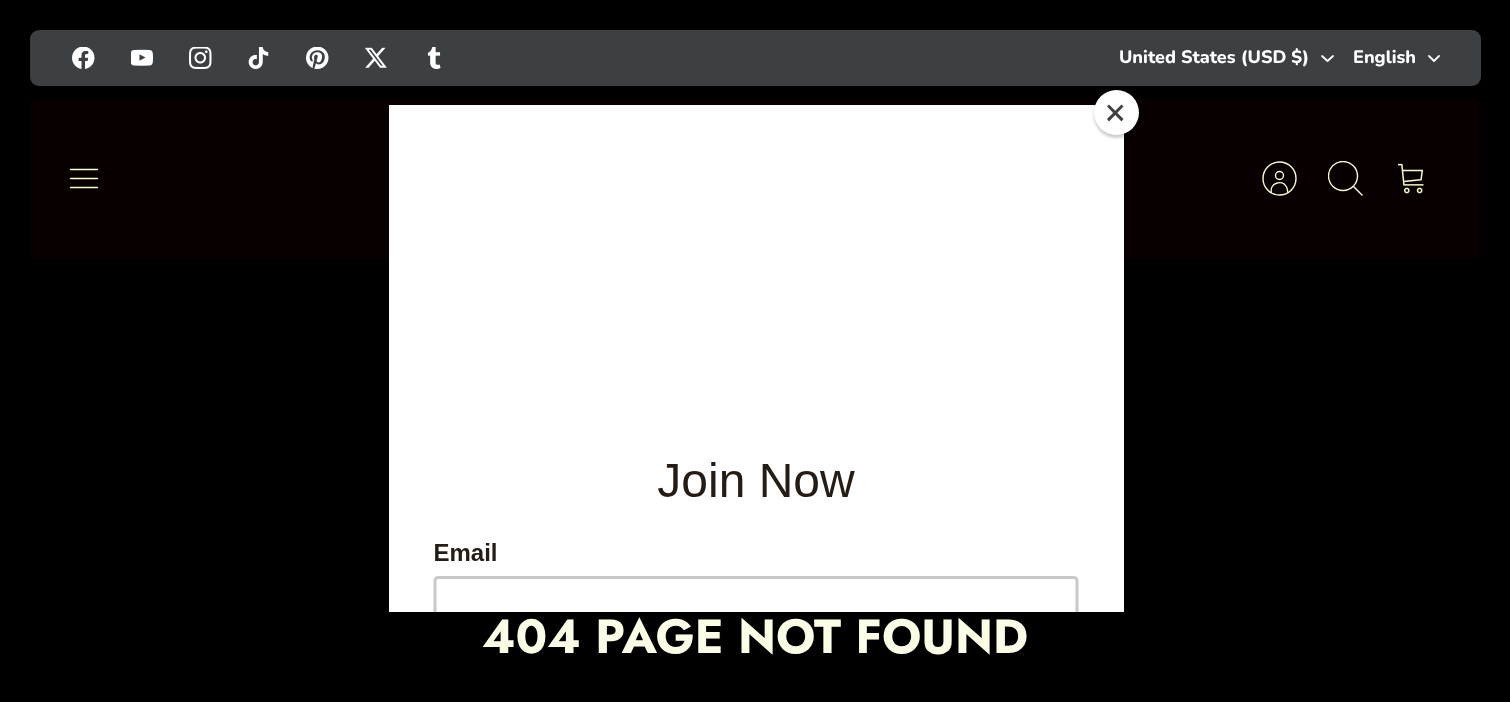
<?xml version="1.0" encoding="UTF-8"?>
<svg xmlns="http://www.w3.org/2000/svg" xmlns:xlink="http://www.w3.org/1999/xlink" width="1510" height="702">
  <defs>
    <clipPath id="clip1"><rect x="1328" y="161" width="36" height="36" /></clipPath>
  </defs>
  <rect width="100%" height="100%" fill="#000000" />
  <rect x="30" y="30" width="1451" height="56" rx="9" fill="#3c4043" />
  <image x="72" y="47" width="23" height="22" xlink:href="image1.png" />
  <image x="131" y="49" width="22" height="17" xlink:href="image2.png" />
  <image x="189" y="47" width="23" height="22" xlink:href="image3.png" />
  <image x="248" y="47" width="21" height="22" xlink:href="image4.png" />
  <image x="306" y="47" width="23" height="22" xlink:href="image5.png" />
  <image x="365" y="47" width="22" height="21" xlink:href="image6.png" />
  <image x="427" y="47" width="14" height="22" xlink:href="image7.png" />
  <path d="M 1322 56 l 5.5 5 l 5.5 -5" fill="none" stroke="#ffffff" stroke-width="1.8" stroke-linecap="round" stroke-linejoin="round" />
  <path d="M 1429 56 l 5 5 l 5 -5" fill="none" stroke="#ffffff" stroke-width="1.8" stroke-linecap="round" stroke-linejoin="round" />
  <rect x="30" y="98" width="1451" height="162" rx="9" fill="#080000" />
  <image x="389" y="105" width="735" height="507" xlink:href="image8.png" />
  <rect x="1094" y="93" width="45" height="45" rx="22.5" fill="#000000" fill-opacity="0.2" filter="blur(1.5px)" />
  <circle cx="1116.5" cy="112.5" r="22.5" fill="#ffffff" />
  <path d="M 1121.5 104.5 l 2 2 l -14.5 15 l -2 -2.5 z" fill="#414141" />
  <path d="M 1107 106.5 l 2 -2 l 14.5 14.5 l -2 2.5 z" fill="#414141" />
  <path d="M 70.5 178.5 h 27 m -27 -9 h 27 m -27 18 h 27" fill="none" stroke="#f4fdce" stroke-width="1.5" stroke-linecap="round" stroke-linejoin="round" />
  <path d="M 1287.5 193 c 0.5 -2 0 -4 -1 -6 c -4.5 -8.5 -17.5 -3.5 -15 6" fill="none" stroke="#f4fdce" stroke-width="1.4" />
  <circle cx="1279.5" cy="175.5" r="4" fill="none" stroke="#f4fdce" stroke-width="1.4" />
  <circle cx="1279.5" cy="178.5" r="16.5" fill="none" stroke="#f4fdce" stroke-width="1.4" />
  <g clip-path="url(#clip1)">
    <circle cx="1343" cy="176" r="14.5" fill="none" stroke="#f4fdce" stroke-width="1.4" />
  </g>
  <path d="M 1354 187 l 8 8" fill="none" stroke="#f4fdce" stroke-width="1.4" stroke-linecap="square" />
  <image x="1398" y="163" width="26" height="31" xlink:href="image9.png" />
  <text x="1119" y="63" style="font-family: Nunito; font-size: 18px; font-weight: 800; fill: #ffffff">United States (USD $)</text>
  <text x="1353" y="63" style="font-family: Nunito; font-size: 18px; font-weight: 800; fill: #ffffff">English</text>
  <text x="482" y="653" style="font-family: Jost; font-size: 48px; font-weight: bold; fill: #fcfde6">404 PAGE NOT FOUND</text>
</svg>
